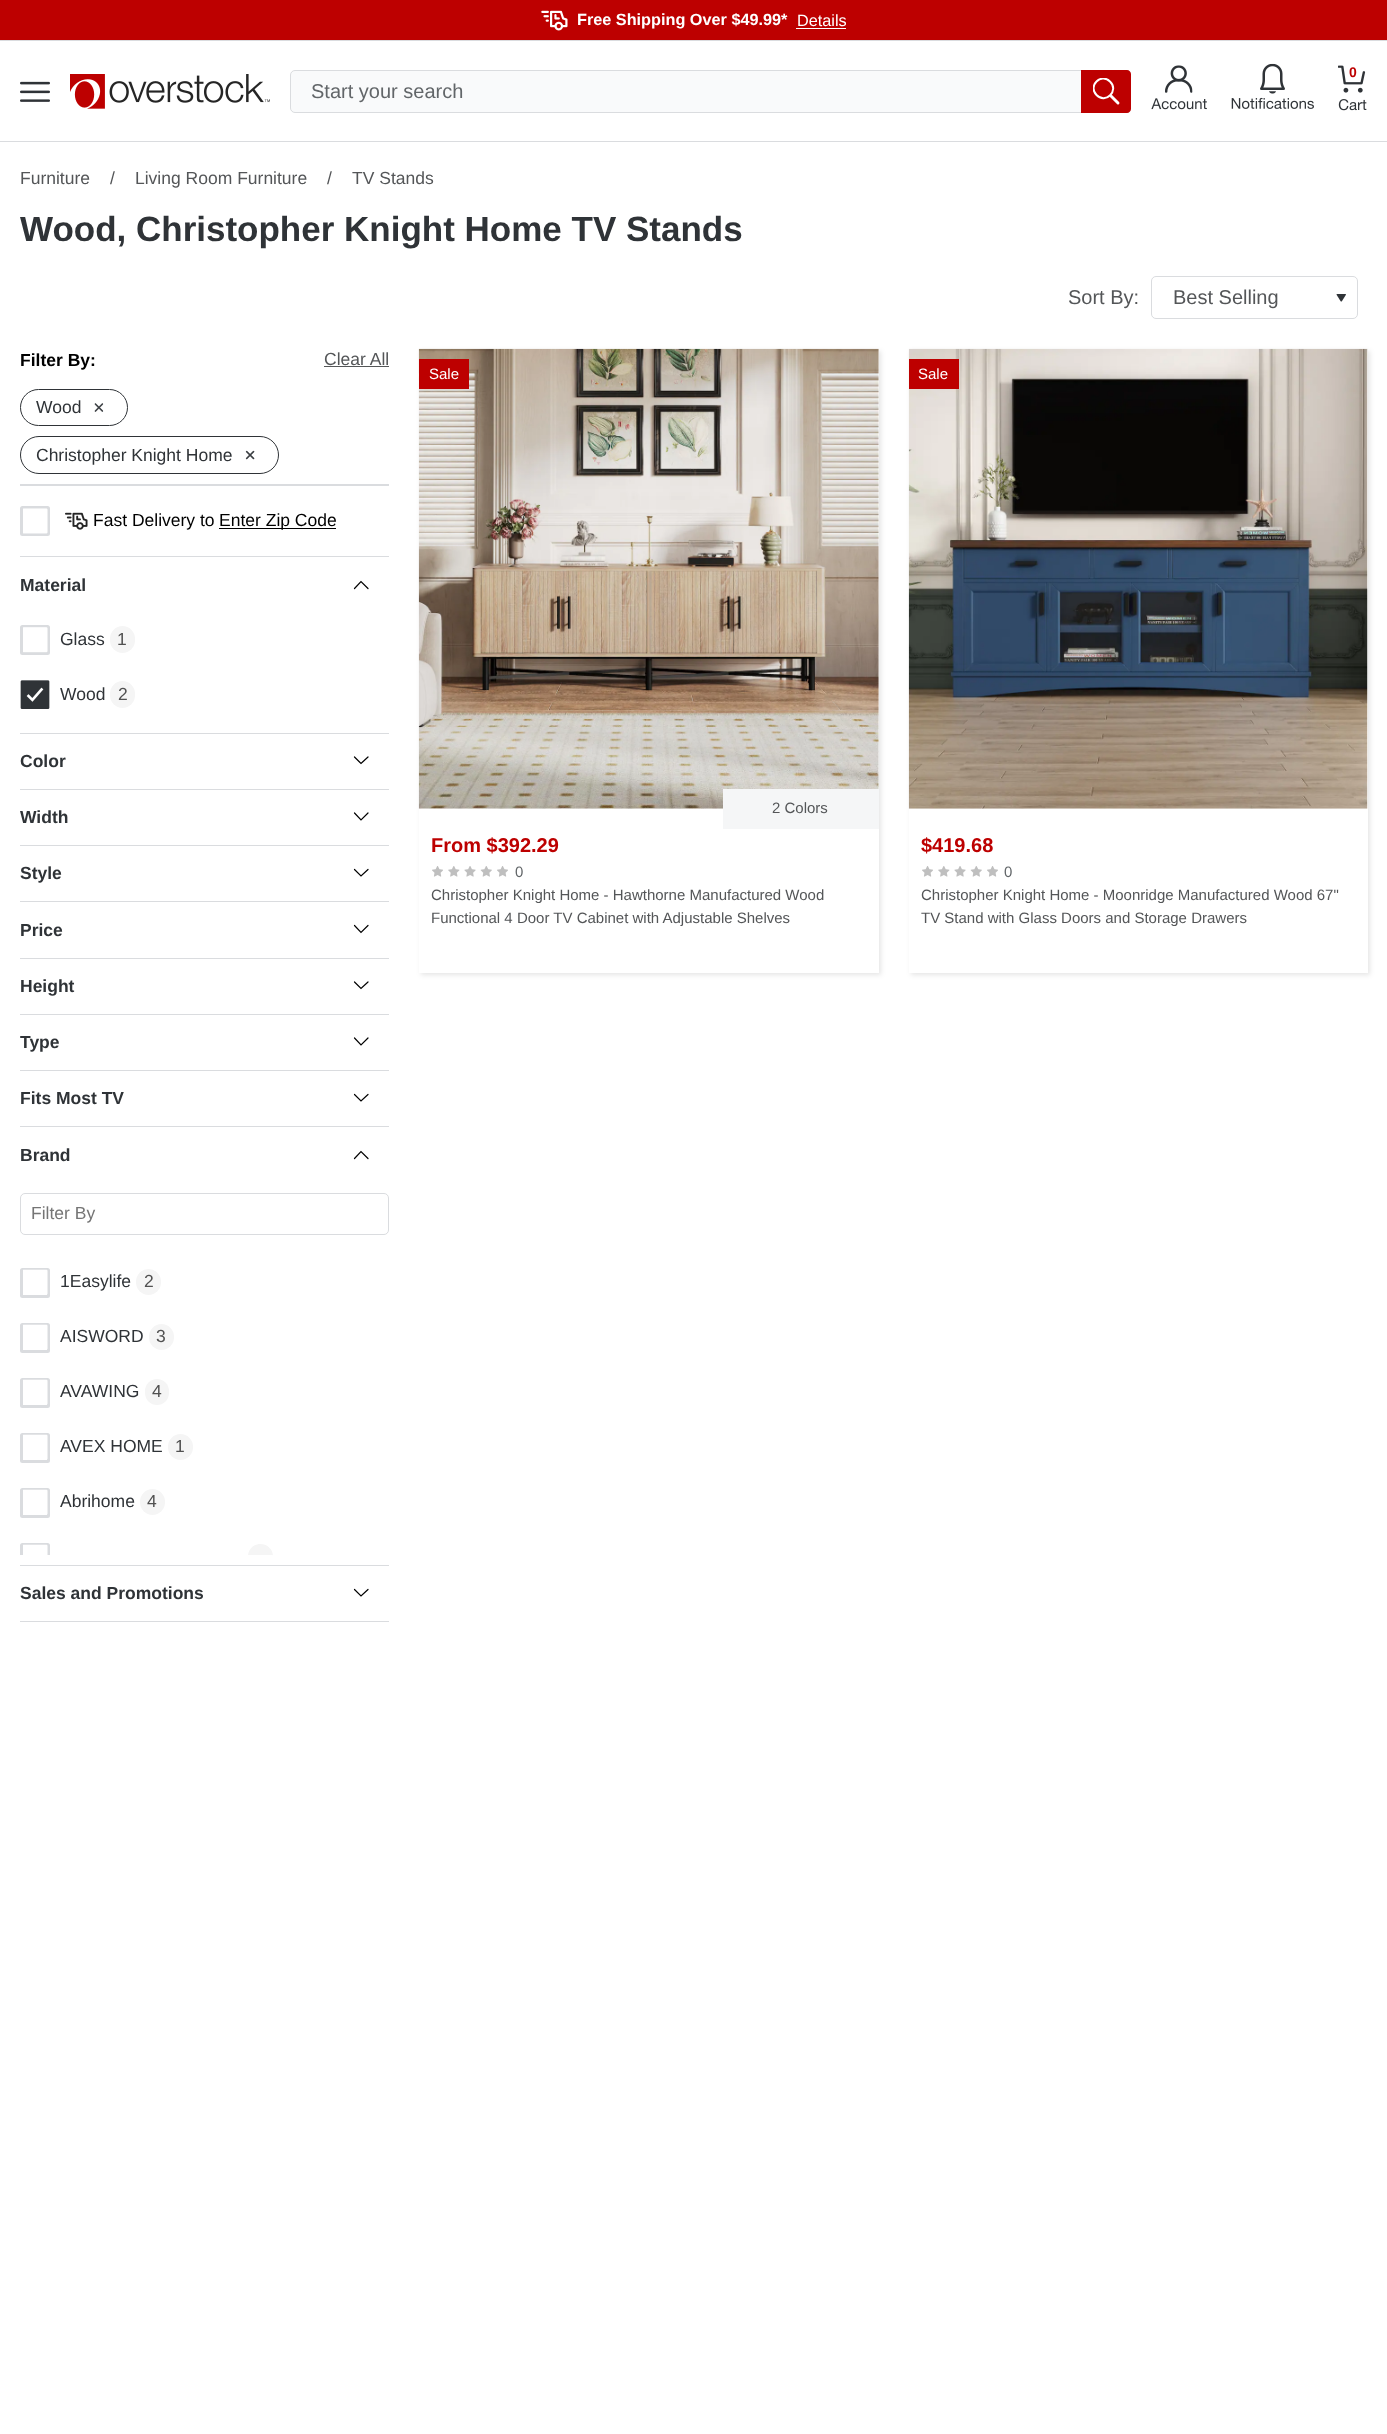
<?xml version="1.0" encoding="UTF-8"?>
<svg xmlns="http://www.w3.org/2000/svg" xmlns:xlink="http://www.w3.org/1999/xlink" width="1387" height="2434">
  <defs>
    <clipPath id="clip1"><rect x="1093" y="78" width="27" height="27" /></clipPath>
    <clipPath id="clip2"><rect x="20" y="1255" width="369" height="300" /></clipPath>
    <clipPath id="clip3"><path d="M 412 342 h 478 v 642 h -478 z m 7 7 h 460 v 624 h -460 z" clip-rule="evenodd" /></clipPath>
    <clipPath id="clip4"><path d="M 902 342 h 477 v 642 h -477 z m 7 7 h 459 v 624 h -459 z" clip-rule="evenodd" /></clipPath>
  </defs>
  <rect width="100%" height="100%" fill="#ffffff" />
  <rect width="1387" height="40" fill="#bd0000" />
  <image x="541" y="10" width="27" height="21" xlink:href="image1.png" />
  <rect x="796" y="28" width="50" height="1" fill="#ffffff" />
  <rect y="40" width="1387" height="1" fill="#dadcdf" />
  <rect y="141" width="1387" height="1" fill="#dadcdf" />
  <image x="1151" y="65" width="56" height="45" xlink:href="image2.png" />
  <image x="1231" y="63" width="83" height="46" xlink:href="image3.png" />
  <image x="1338" y="65" width="29" height="46" xlink:href="image4.png" />
  <image x="20" y="81" width="30" height="21" xlink:href="image5.png" />
  <image x="70" y="74" width="200" height="35" xlink:href="image6.png" />
  <rect x="290.5" y="70.5" width="840" height="42" rx="4.5" fill="#f9fafb" stroke="#dadcdf" />
  <path d="M 1081 70 h 46 c 2 0 4 2 4 4 v 35 c 0 2 -2 4 -4 4 h -46 z" fill="#bd0000" />
  <path d="M 1118 103 l -7 -7" fill="none" stroke="#ffffff" stroke-width="2.9" stroke-linecap="round" />
  <g clip-path="url(#clip1)">
    <path d="M 1110 81.5 c 9.5 9 -4.5 23 -13.5 13.5 c -9 -9 4.5 -22.5 13.5 -13.5 z" fill="none" stroke="#ffffff" stroke-width="2" />
  </g>
  <image x="1336" y="294" width="10" height="8" xlink:href="image7.png" />
  <rect x="1151.5" y="276.5" width="206" height="42" rx="4.5" fill="none" stroke="#dadcdf" />
  <rect x="324" y="366" width="65" height="1" fill="#545658" />
  <rect x="20.5" y="389.5" width="107" height="36" rx="18" fill="none" stroke="#2f3337" />
  <image x="94" y="403" width="10" height="9" xlink:href="image8.png" />
  <rect x="20.5" y="436.5" width="258" height="37" rx="18.5" fill="none" stroke="#2f3337" />
  <image x="245" y="450" width="10" height="10" xlink:href="image9.png" />
  <rect x="20" y="484" width="369" height="2" fill="#dadcdf" />
  <rect x="20" y="1621" width="369" height="1" fill="#dadcdf" />
  <rect x="21.5" y="507.5" width="27" height="27" rx="1" fill="none" stroke="#dadcdf" stroke-width="3" />
  <image x="23" y="508" width="25" height="26" xlink:href="image10.png" />
  <image x="65" y="512" width="23" height="18" xlink:href="image11.png" />
  <rect x="219" y="528" width="117" height="1" fill="#000000" />
  <rect x="20" y="556" width="369" height="1" fill="#dadcdf" />
  <path d="M 354.5 588.5 l 6.5 -7 l 7 7" fill="none" stroke="#000000" stroke-width="1.2" stroke-linecap="round" />
  <rect x="21.5" y="626.5" width="27" height="27" rx="1" fill="none" stroke="#dadcdf" stroke-width="3" />
  <image x="23" y="627" width="25" height="26" xlink:href="image12.png" />
  <rect x="110" y="626" width="25" height="27" rx="12.5" fill="#f5f5f5" />
  <image x="20" y="680" width="30" height="29" xlink:href="image13.png" />
  <rect x="110" y="681" width="25" height="27" rx="12.5" fill="#f5f5f5" />
  <rect x="20" y="733" width="369" height="1" fill="#dadcdf" />
  <path d="M 368 757 l -7 6.5 l -6.5 -6.5" fill="none" stroke="#000000" stroke-width="1.2" stroke-linecap="round" />
  <rect x="20" y="789" width="369" height="1" fill="#dadcdf" />
  <path d="M 368 813 l -7 7 l -6.5 -7" fill="none" stroke="#000000" stroke-width="1.2" stroke-linecap="round" />
  <rect x="20" y="845" width="369" height="1" fill="#dadcdf" />
  <path d="M 368 869.5 l -7 6.5 l -6.5 -6.5" fill="none" stroke="#000000" stroke-width="1.2" stroke-linecap="round" />
  <rect x="20" y="901" width="369" height="1" fill="#dadcdf" />
  <path d="M 368 925.5 l -7 7 l -6.5 -7" fill="none" stroke="#000000" stroke-width="1.2" stroke-linecap="round" />
  <rect x="20" y="958" width="369" height="1" fill="#dadcdf" />
  <path d="M 368 982 l -7 6.5 l -6.5 -6.5" fill="none" stroke="#000000" stroke-width="1.2" stroke-linecap="round" />
  <rect x="20" y="1014" width="369" height="1" fill="#dadcdf" />
  <path d="M 368 1038 l -7 7 l -6.5 -7" fill="none" stroke="#000000" stroke-width="1.2" stroke-linecap="round" />
  <rect x="20" y="1070" width="369" height="1" fill="#dadcdf" />
  <path d="M 368 1094.5 l -7 6.5 l -6.5 -6.5" fill="none" stroke="#000000" stroke-width="1.2" stroke-linecap="round" />
  <rect x="20" y="1126" width="369" height="1" fill="#dadcdf" />
  <path d="M 354.5 1158.5 l 6.5 -7 l 7 7" fill="none" stroke="#000000" stroke-width="1.2" stroke-linecap="round" />
  <rect x="20.5" y="1193.5" width="368" height="41" rx="4.5" fill="none" stroke="#dadcdf" />
  <rect x="21.5" y="1269.5" width="27" height="27" rx="1" fill="none" stroke="#dadcdf" stroke-width="3" />
  <image x="23" y="1269" width="25" height="26" xlink:href="image14.png" />
  <rect x="136" y="1269" width="25" height="26" rx="12.5" fill="#f5f5f5" />
  <rect x="21.5" y="1324.5" width="27" height="27" rx="1" fill="none" stroke="#dadcdf" stroke-width="3" />
  <image x="23" y="1324" width="25" height="26" xlink:href="image14.png" />
  <rect x="149" y="1324" width="25" height="26" rx="12.5" fill="#f5f5f5" />
  <rect x="21.5" y="1379.5" width="27" height="27" rx="1" fill="none" stroke="#dadcdf" stroke-width="3" />
  <image x="23" y="1379" width="25" height="26" xlink:href="image14.png" />
  <rect x="145" y="1379" width="24" height="26" rx="12" fill="#f5f5f5" />
  <rect x="21.5" y="1434.5" width="27" height="27" rx="1" fill="none" stroke="#dadcdf" stroke-width="3" />
  <image x="23" y="1434" width="25" height="26" xlink:href="image14.png" />
  <rect x="168" y="1434" width="25" height="26" rx="12.5" fill="#f5f5f5" />
  <rect x="21.5" y="1489.5" width="27" height="27" rx="1" fill="none" stroke="#dadcdf" stroke-width="3" />
  <image x="23" y="1489" width="25" height="26" xlink:href="image14.png" />
  <rect x="140" y="1489" width="25" height="26" rx="12.5" fill="#f5f5f5" />
  <rect x="20" y="1565" width="369" height="1" fill="#dadcdf" />
  <g clip-path="url(#clip2)">
    <rect x="21.5" y="1544.5" width="27" height="27" rx="1" fill="none" stroke="#dadcdf" stroke-width="3" />
  </g>
  <image x="23" y="1544" width="25" height="11" xlink:href="image15.png" />
  <path d="M 260.5 1544 c 7 0 12.5 5.5 12.5 12.5 v -1.5 h -25 v 1.5 c 0 -7 5.5 -12.5 12.5 -12.5 z" fill="#f5f5f5" />
  <path d="M 368 1589.5 l -7 6.5 l -6.5 -6.5" fill="none" stroke="#000000" stroke-width="1.2" stroke-linecap="round" />
  <g clip-path="url(#clip3)">
    <rect x="421" y="351" width="460" height="624" fill="#000000" fill-opacity="0.1" filter="blur(2.5px)" />
  </g>
  <image x="418" y="348" width="461" height="461" xlink:href="image16.png" />
  <rect x="419" y="359" width="50" height="30" fill="#bd0000" />
  <image x="432" y="866" width="11" height="11" xlink:href="image17.png" />
  <image x="448" y="866" width="12" height="11" xlink:href="image18.png" />
  <image x="464" y="866" width="12" height="11" xlink:href="image19.png" />
  <image x="480" y="866" width="12" height="11" xlink:href="image20.png" />
  <image x="497" y="866" width="11" height="11" xlink:href="image17.png" />
  <rect x="723" y="789" width="156" height="40" fill="#f5f6f7" />
  <g clip-path="url(#clip4)">
    <rect x="911" y="351" width="459" height="624" fill="#000000" fill-opacity="0.1" filter="blur(2.5px)" />
  </g>
  <image x="908" y="348" width="460" height="461" xlink:href="image21.png" />
  <rect x="909" y="359" width="50" height="30" fill="#bd0000" />
  <image x="922" y="866" width="11" height="11" xlink:href="image17.png" />
  <image x="938" y="866" width="12" height="11" xlink:href="image18.png" />
  <image x="954" y="866" width="12" height="11" xlink:href="image19.png" />
  <image x="970" y="866" width="12" height="11" xlink:href="image20.png" />
  <image x="987" y="866" width="11" height="11" xlink:href="image17.png" />
  <text x="577" y="25" style="font-family: Liberation Sans; font-size: 16.25px; font-weight: bold; fill: #ffffff">Free Shipping Over $49.99*</text>
  <text x="797" y="26" style="font-family: Liberation Sans; font-size: 16.25px; fill: #ffffff">Details</text>
  <text x="1349" y="77" style="font-family: Liberation Sans; font-size: 14px; font-weight: bold; fill: #bd0000">0</text>
  <text x="311" y="98" style="font-family: Liberation Sans; font-size: 20px; fill: #626669">Start your search</text>
  <text x="20" y="184" style="font-family: Liberation Sans; font-size: 17.5px; fill: #545658">Furniture</text>
  <text x="110" y="184" style="font-family: Liberation Sans; font-size: 17.5px; fill: #545658">/</text>
  <text x="135" y="184" style="font-family: Liberation Sans; font-size: 17.5px; fill: #545658">Living Room Furniture</text>
  <text x="327" y="184" style="font-family: Liberation Sans; font-size: 17.5px; fill: #545658">/</text>
  <text x="352" y="184" style="font-family: Liberation Sans; font-size: 17.5px; fill: #545658">TV Stands</text>
  <text x="20" y="241" style="font-family: Liberation Sans; font-size: 35px; font-weight: bold; fill: #2f3337">Wood, Christopher Knight Home TV Stands</text>
  <text x="1068" y="304" style="font-family: Liberation Sans; font-size: 20px; fill: #545658">Sort By:</text>
  <text x="1173" y="304" style="font-family: Liberation Sans; font-size: 20px; fill: #545658">Best Selling</text>
  <text x="20" y="366" style="font-family: Liberation Sans; font-size: 17.5px; font-weight: bold; fill: #000000">Filter By:</text>
  <text x="324" y="365" style="font-family: Liberation Sans; font-size: 17.5px; fill: #545658">Clear All</text>
  <text x="36" y="413" style="font-family: Liberation Sans; font-size: 17.5px; fill: #2f3337">Wood</text>
  <text x="36" y="461" style="font-family: Liberation Sans; font-size: 17.5px; fill: #2f3337">Christopher Knight Home</text>
  <text x="93" y="526" style="font-family: Liberation Sans; font-size: 17.5px; fill: #000000">Fast Delivery to</text>
  <text x="219" y="526" style="font-family: Liberation Sans; font-size: 17.5px; fill: #000000">Enter Zip Code</text>
  <text x="20" y="591" style="font-family: Liberation Sans; font-size: 17.5px; font-weight: bold; fill: #2f3337">Material</text>
  <text x="60" y="645" style="font-family: Liberation Sans; font-size: 17.5px; fill: #2f3337">Glass</text>
  <text x="117" y="645" style="font-family: Liberation Sans; font-size: 17.5px; fill: #515151">1</text>
  <text x="60" y="700" style="font-family: Liberation Sans; font-size: 17.5px; fill: #2f3337">Wood</text>
  <text x="118" y="700" style="font-family: Liberation Sans; font-size: 17.5px; fill: #515151">2</text>
  <text x="20" y="767" style="font-family: Liberation Sans; font-size: 17.5px; font-weight: bold; fill: #2f3337">Color</text>
  <text x="20" y="823" style="font-family: Liberation Sans; font-size: 17.5px; font-weight: bold; fill: #2f3337">Width</text>
  <text x="20" y="879" style="font-family: Liberation Sans; font-size: 17.5px; font-weight: bold; fill: #2f3337">Style</text>
  <text x="20" y="936" style="font-family: Liberation Sans; font-size: 17.5px; font-weight: bold; fill: #2f3337">Price</text>
  <text x="20" y="992" style="font-family: Liberation Sans; font-size: 17.5px; font-weight: bold; fill: #2f3337">Height</text>
  <text x="20" y="1048" style="font-family: Liberation Sans; font-size: 17.5px; font-weight: bold; fill: #2f3337">Type</text>
  <text x="20" y="1104" style="font-family: Liberation Sans; font-size: 17.5px; font-weight: bold; fill: #2f3337">Fits Most TV</text>
  <text x="20" y="1161" style="font-family: Liberation Sans; font-size: 17.5px; font-weight: bold; fill: #2f3337">Brand</text>
  <text x="31" y="1219" style="font-family: Liberation Sans; font-size: 17.5px; fill: #757575">Filter By</text>
  <text x="60" y="1287" style="font-family: Liberation Sans; font-size: 17.5px; fill: #2f3337">1Easylife</text>
  <text x="144" y="1287" style="font-family: Liberation Sans; font-size: 17.5px; fill: #515151">2</text>
  <text x="60" y="1342" style="font-family: Liberation Sans; font-size: 17.5px; fill: #2f3337">AISWORD</text>
  <text x="156" y="1342" style="font-family: Liberation Sans; font-size: 17.5px; fill: #515151">3</text>
  <text x="60" y="1397" style="font-family: Liberation Sans; font-size: 17.5px; fill: #2f3337">AVAWING</text>
  <text x="152" y="1397" style="font-family: Liberation Sans; font-size: 17.5px; fill: #515151">4</text>
  <text x="60" y="1452" style="font-family: Liberation Sans; font-size: 17.5px; fill: #2f3337">AVEX HOME</text>
  <text x="175" y="1452" style="font-family: Liberation Sans; font-size: 17.5px; fill: #515151">1</text>
  <text x="60" y="1507" style="font-family: Liberation Sans; font-size: 17.5px; fill: #2f3337">Abrihome</text>
  <text x="147" y="1507" style="font-family: Liberation Sans; font-size: 17.5px; fill: #515151">4</text>
  <text x="20" y="1599" style="font-family: Liberation Sans; font-size: 17.5px; font-weight: bold; fill: #2f3337">Sales and Promotions</text>
  <text x="429" y="379" style="font-family: Liberation Sans; font-size: 15px; fill: #ffffff">Sale</text>
  <text x="431" y="852" style="font-family: Liberation Sans; font-size: 20px; font-weight: bold; fill: #bd0000">From $392.29</text>
  <text x="515" y="877" style="font-family: Liberation Sans; font-size: 15px; fill: #626669">0</text>
  <text x="431" y="900" style="font-family: Liberation Sans; font-size: 15px; fill: #545658">Christopher Knight Home - Hawthorne Manufactured Wood</text>
  <text x="431" y="923" style="font-family: Liberation Sans; font-size: 15px; fill: #545658">Functional 4 Door TV Cabinet with Adjustable Shelves</text>
  <text x="772" y="813" style="font-family: Liberation Sans; font-size: 15px; fill: #545658">2 Colors</text>
  <text x="918" y="379" style="font-family: Liberation Sans; font-size: 15px; fill: #ffffff">Sale</text>
  <text x="921" y="852" style="font-family: Liberation Sans; font-size: 20px; font-weight: bold; fill: #bd0000">$419.68</text>
  <text x="1004" y="877" style="font-family: Liberation Sans; font-size: 15px; fill: #626669">0</text>
  <text x="921" y="900" style="font-family: Liberation Sans; font-size: 15px; fill: #545658">Christopher Knight Home - Moonridge Manufactured Wood 67"</text>
  <text x="921" y="923" style="font-family: Liberation Sans; font-size: 15px; fill: #545658">TV Stand with Glass Doors and Storage Drawers</text>
</svg>
